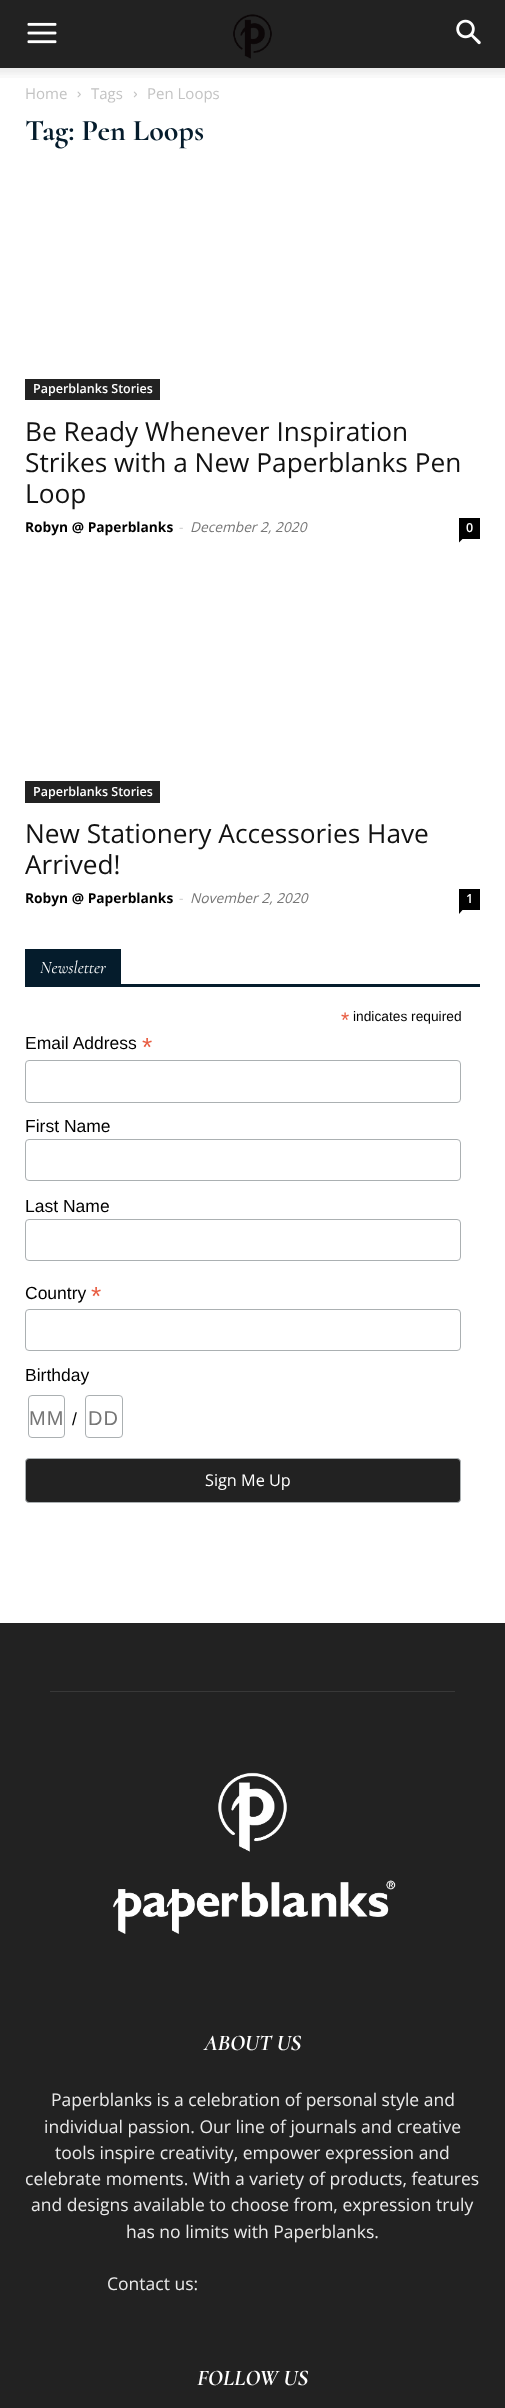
<?xml version="1.0" encoding="UTF-8"?>
<svg xmlns="http://www.w3.org/2000/svg" xmlns:xlink="http://www.w3.org/1999/xlink" width="505" height="2408">
  <rect width="100%" height="100%" fill="#ffffff" />
  <rect width="505" height="68" fill="#222222" />
  <image x="27" y="22" width="30" height="22" xlink:href="image1.png" />
  <image x="233" y="14" width="39" height="45" xlink:href="image2.png" />
  <image x="456" y="19" width="25" height="26" xlink:href="image3.png" />
  <image x="0" y="68" width="505" height="10" xlink:href="image4.png" />
  <image x="77" y="91" width="4" height="7" xlink:href="image5.png" />
  <image x="133" y="91" width="4" height="7" xlink:href="image6.png" />
  <rect x="25" y="379" width="135" height="21" fill="#222222" />
  <rect x="459" y="518" width="21" height="21" fill="#000000" />
  <path d="M 459 539 h 3.5 l -3.5 3.5 z" fill="#000000" />
  <rect x="25" y="781" width="135" height="22" fill="#222222" />
  <rect x="459" y="889" width="21" height="21" fill="#000000" />
  <path d="M 459 910 h 3.5 l -3.5 4 z" fill="#000000" />
  <rect x="25" y="984" width="455" height="3" fill="#051c2c" />
  <rect x="25" y="949" width="96" height="35" fill="#051c2c" />
  <rect x="25.5" y="1060.5" width="435" height="42" rx="3.5" fill="none" stroke="#abb0b2" />
  <rect x="25.5" y="1139.5" width="435" height="41" rx="3.5" fill="none" stroke="#abb0b2" />
  <rect x="25.5" y="1219.5" width="435" height="41" rx="3.5" fill="none" stroke="#abb0b2" />
  <rect x="25.5" y="1309.5" width="435" height="41" rx="3.5" fill="none" stroke="#abb0b2" />
  <rect x="28.5" y="1395.5" width="36" height="42" rx="3.5" fill="none" stroke="#abb0b2" />
  <rect x="85.5" y="1395.5" width="37" height="42" rx="3.5" fill="none" stroke="#abb0b2" />
  <rect x="25.5" y="1458.5" width="435" height="44" rx="3.5" fill="#222222" stroke="#abb0b2" />
  <rect y="1623" width="505" height="785" fill="#222222" />
  <rect x="50" y="1691" width="405" height="1" fill="#383838" />
  <image x="113" y="1772" width="283" height="162" xlink:href="image7.png" />
  <text x="25" y="99" style="font-family: Open Sans; font-size: 15px; fill: #c3c3c3">Home</text>
  <text x="91" y="99" style="font-family: Open Sans; font-size: 15px; fill: #c3c3c3">Tags</text>
  <text x="147" y="99" style="font-family: Open Sans; font-size: 15px; fill: #c3c3c3">Pen Loops</text>
  <text x="25" y="140" style="font-family: Cormorant; font-size: 30px; font-weight: bold; fill: #051c2c">Tag: Pen Loops</text>
  <text x="33" y="393" style="font-family: Open Sans; font-size: 12.5px; font-weight: 600; fill: #ffffff">Paperblanks Stories</text>
  <text x="25" y="441" style="font-family: Open Sans; font-size: 26.25px; fill: #111111">Be Ready Whenever Inspiration</text>
  <text x="25" y="472" style="font-family: Open Sans; font-size: 26.25px; fill: #111111">Strikes with a New Paperblanks Pen</text>
  <text x="25" y="503" style="font-family: Open Sans; font-size: 26.25px; fill: #111111">Loop</text>
  <text x="25" y="532" style="font-family: Open Sans; font-size: 13.75px; font-weight: bold; fill: #000000">Robyn @ Paperblanks</text>
  <text x="179" y="532" style="font-family: Open Sans; font-size: 13.75px; fill: #cccccc">-</text>
  <text x="190" y="532" style="font-family: Open Sans; font-size: 13.75px; font-style: italic; fill: #767676">December 2, 2020</text>
  <text x="466" y="532" style="font-family: Open Sans; font-size: 12.5px; font-weight: 600; fill: #ffffff">0</text>
  <text x="33" y="796" style="font-family: Open Sans; font-size: 12.5px; font-weight: 600; fill: #ffffff">Paperblanks Stories</text>
  <text x="25" y="843" style="font-family: Open Sans; font-size: 26.25px; fill: #111111">New Stationery Accessories Have</text>
  <text x="25" y="874" style="font-family: Open Sans; font-size: 26.25px; fill: #111111">Arrived!</text>
  <text x="25" y="903" style="font-family: Open Sans; font-size: 13.75px; font-weight: bold; fill: #000000">Robyn @ Paperblanks</text>
  <text x="179" y="903" style="font-family: Open Sans; font-size: 13.75px; fill: #cccccc">-</text>
  <text x="190" y="903" style="font-family: Open Sans; font-size: 13.75px; font-style: italic; fill: #767676">November 2, 2020</text>
  <text x="466" y="903" style="font-family: Open Sans; font-size: 12.5px; font-weight: 600; fill: #ffffff">1</text>
  <text x="40" y="973" style="font-family: Cormorant; font-size: 17.5px; font-style: italic; fill: #ffffff">Newsletter</text>
  <text x="341" y="1027" style="font-family: Liberation Sans; font-size: 21px; fill: #e85c41">*</text>
  <text x="353" y="1021" style="font-family: Liberation Sans; font-size: 13.75px; fill: #000000">indicates required</text>
  <text x="25" y="1049" style="font-family: Liberation Sans; font-size: 17.5px; fill: #000000">Email Address</text>
  <text x="142" y="1056" style="font-family: Liberation Sans; font-size: 26.25px; fill: #e85c41">*</text>
  <text x="25" y="1132" style="font-family: Liberation Sans; font-size: 17.5px; fill: #000000">First Name</text>
  <text x="25" y="1212" style="font-family: Liberation Sans; font-size: 17.5px; fill: #000000">Last Name</text>
  <text x="25" y="1299" style="font-family: Liberation Sans; font-size: 17.5px; fill: #000000">Country</text>
  <text x="91" y="1305" style="font-family: Liberation Sans; font-size: 26.25px; fill: #e85c41">*</text>
  <text x="25" y="1381" style="font-family: Liberation Sans; font-size: 17.5px; fill: #000000">Birthday</text>
  <text x="29" y="1425" style="font-family: Liberation Sans; font-size: 20px; letter-spacing: 1px; fill: #767676">MM</text>
  <text x="72" y="1425" style="font-family: Liberation Sans; font-size: 17.5px; fill: #000000">/</text>
  <text x="88" y="1425" style="font-family: Liberation Sans; font-size: 20px; letter-spacing: 1px; fill: #767676">DD</text>
  <text x="205" y="1486" style="font-family: Open Sans; font-size: 16.25px; fill: #ffffff">Sign Me Up</text>
  <text x="204" y="2050" style="font-family: Cormorant; font-size: 22.5px; font-weight: bold; font-style: italic; fill: #ffffff">ABOUT US</text>
  <text x="51" y="2106" style="font-family: Open Sans; font-size: 17.5px; fill: #eaeaea">Paperblanks is a celebration of personal style and</text>
  <text x="44" y="2133" style="font-family: Open Sans; font-size: 17.5px; fill: #eaeaea">individual passion. Our line of journals and creative</text>
  <text x="55" y="2159" style="font-family: Open Sans; font-size: 17.5px; fill: #eaeaea">tools inspire creativity, empower expression and</text>
  <text x="25" y="2185" style="font-family: Open Sans; font-size: 17.5px; fill: #eaeaea">celebrate moments. With a variety of products, features</text>
  <text x="31" y="2211" style="font-family: Open Sans; font-size: 17.5px; fill: #eaeaea">and designs available to choose from, expression truly</text>
  <text x="126" y="2238" style="font-family: Open Sans; font-size: 17.5px; fill: #eaeaea">has no limits with Paperblanks.</text>
  <text x="107" y="2290" style="font-family: Open Sans; font-size: 17.5px; fill: #eaeaea">Contact us:</text>
  <text x="197" y="2385" style="font-family: Cormorant; font-size: 22.5px; font-weight: bold; font-style: italic; fill: #ffffff">FOLLOW US</text>
</svg>
